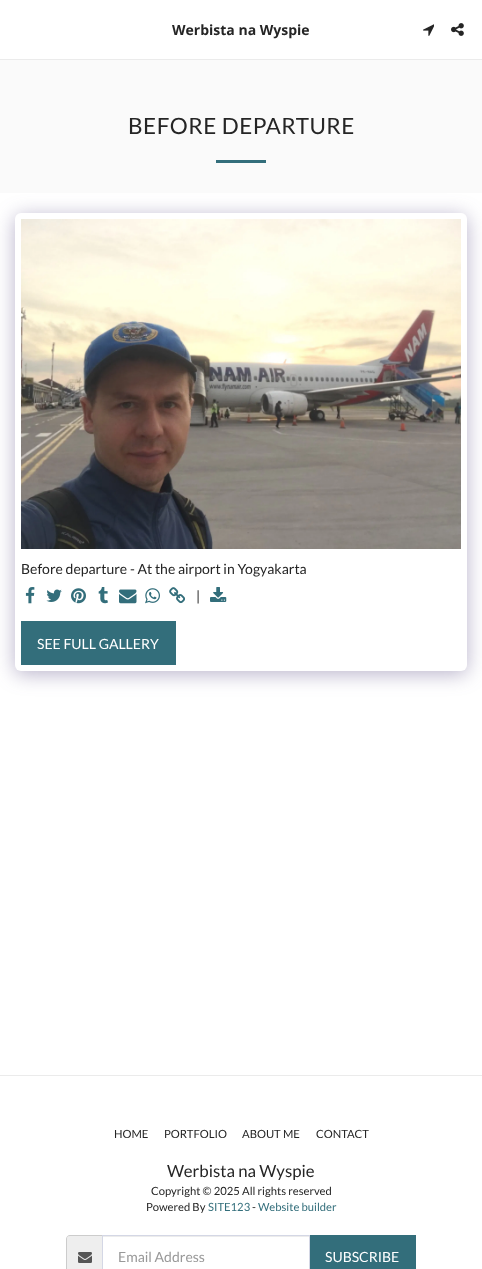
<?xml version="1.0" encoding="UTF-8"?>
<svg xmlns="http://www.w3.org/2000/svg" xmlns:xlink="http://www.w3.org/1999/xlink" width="482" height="1269">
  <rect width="100%" height="100%" fill="#ffffff" />
  <rect y="59" width="482" height="1" fill="#ebebeb" />
  <image x="423" y="24" width="11" height="12" xlink:href="image1.png" />
  <image x="451" y="23" width="13" height="13" xlink:href="image2.png" />
  <rect y="60" width="482" height="133" fill="#fafafa" />
  <rect x="216" y="160" width="50" height="3" fill="#336e7b" />
  <rect x="15" y="216" width="452" height="458" rx="6" fill="#4d3f7a" fill-opacity="0.4" filter="blur(10px)" />
  <rect x="15" y="213" width="452" height="458" rx="6" fill="#ffffff" />
  <image x="21" y="219" width="440" height="330" xlink:href="image3.png" />
  <image x="25" y="587" width="10" height="17" xlink:href="image4.png" />
  <image x="46" y="589" width="16" height="13" xlink:href="image5.png" />
  <image x="71" y="588" width="15" height="16" xlink:href="image6.png" />
  <image x="98" y="587" width="10" height="17" xlink:href="image7.png" />
  <image x="119" y="589" width="18" height="15" xlink:href="image8.png" />
  <image x="145" y="588" width="15" height="16" xlink:href="image9.png" />
  <image x="169" y="587" width="16" height="17" xlink:href="image10.png" />
  <image x="210" y="587" width="17" height="15" xlink:href="image11.png" />
  <rect x="21" y="621" width="155" height="44" fill="#336e7b" />
  <rect y="1075" width="482" height="1" fill="#ebebeb" />
  <path d="M 70 1236 h 32 v 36 h -32 c -1.5 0 -3 -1.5 -3 -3 v -30 c 0 -1.5 1.5 -3 3 -3 z" fill="#eeeeee" />
  <path d="M 70 1235 h 32 v 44 h -32 c -2 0 -4 -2 -4 -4 v -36 c 0 -2 2 -4 4 -4 z m 0 1 h 32 v 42 h -32 c -2 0 -3 -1 -3 -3 v -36 c 0 -2 1 -3 3 -3 z" fill="#cccccc" fill-rule="evenodd" />
  <image x="78" y="1252" width="14" height="11" xlink:href="image12.png" />
  <rect x="103" y="1236" width="206" height="1" fill="#ececec" />
  <rect x="102.5" y="1235.5" width="207" height="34" fill="none" stroke="#d4d7e5" />
  <rect x="310" y="1235" width="106" height="34" fill="#336e7b" />
  <text x="172" y="35" style="font-family: Open Sans; font-size: 14px; font-weight: bold; fill: #252525">Werbista na Wyspie</text>
  <text x="128" y="134" style="font-family: Lato; font-size: 22.5px; letter-spacing: 0.5px; fill: #252525">BEFORE DEPARTURE</text>
  <text x="21" y="574" style="font-family: Lato; font-size: 14px; fill: #252525">Before departure - At the airport in Yogyakarta</text>
  <text x="196" y="601" style="font-family: Lato; font-size: 14px; fill: #252525">|</text>
  <text x="37" y="649" style="font-family: Lato; font-size: 14px; fill: #ffffff">SEE FULL GALLERY</text>
  <text x="114" y="1138" style="font-family: Lato; font-size: 11.25px; fill: #252525">HOME</text>
  <text x="164" y="1138" style="font-family: Lato; font-size: 11.25px; fill: #252525">PORTFOLIO</text>
  <text x="242" y="1138" style="font-family: Lato; font-size: 11.25px; fill: #252525">ABOUT ME</text>
  <text x="316" y="1138" style="font-family: Lato; font-size: 11.25px; fill: #252525">CONTACT</text>
  <text x="167" y="1177" style="font-family: Lato; font-size: 16.75px; fill: #252525">Werbista na Wyspie</text>
  <text x="151" y="1195" style="font-family: Lato; font-size: 11.25px; fill: #252525">Copyright © 2025 All rights reserved</text>
  <text x="146" y="1211" style="font-family: Lato; font-size: 11.25px; fill: #252525">Powered By</text>
  <text x="208" y="1211" style="font-family: Lato; font-size: 11.25px; fill: #336e7b">SITE123</text>
  <text x="252" y="1211" style="font-family: Lato; font-size: 11.25px; fill: #252525">-</text>
  <text x="258" y="1211" style="font-family: Lato; font-size: 11.25px; fill: #336e7b">Website builder</text>
  <text x="118" y="1262" style="font-family: Lato; font-size: 14px; fill: #999999">Email Address</text>
  <text x="325" y="1262" style="font-family: Lato; font-size: 14px; fill: #ffffff">SUBSCRIBE</text>
</svg>
